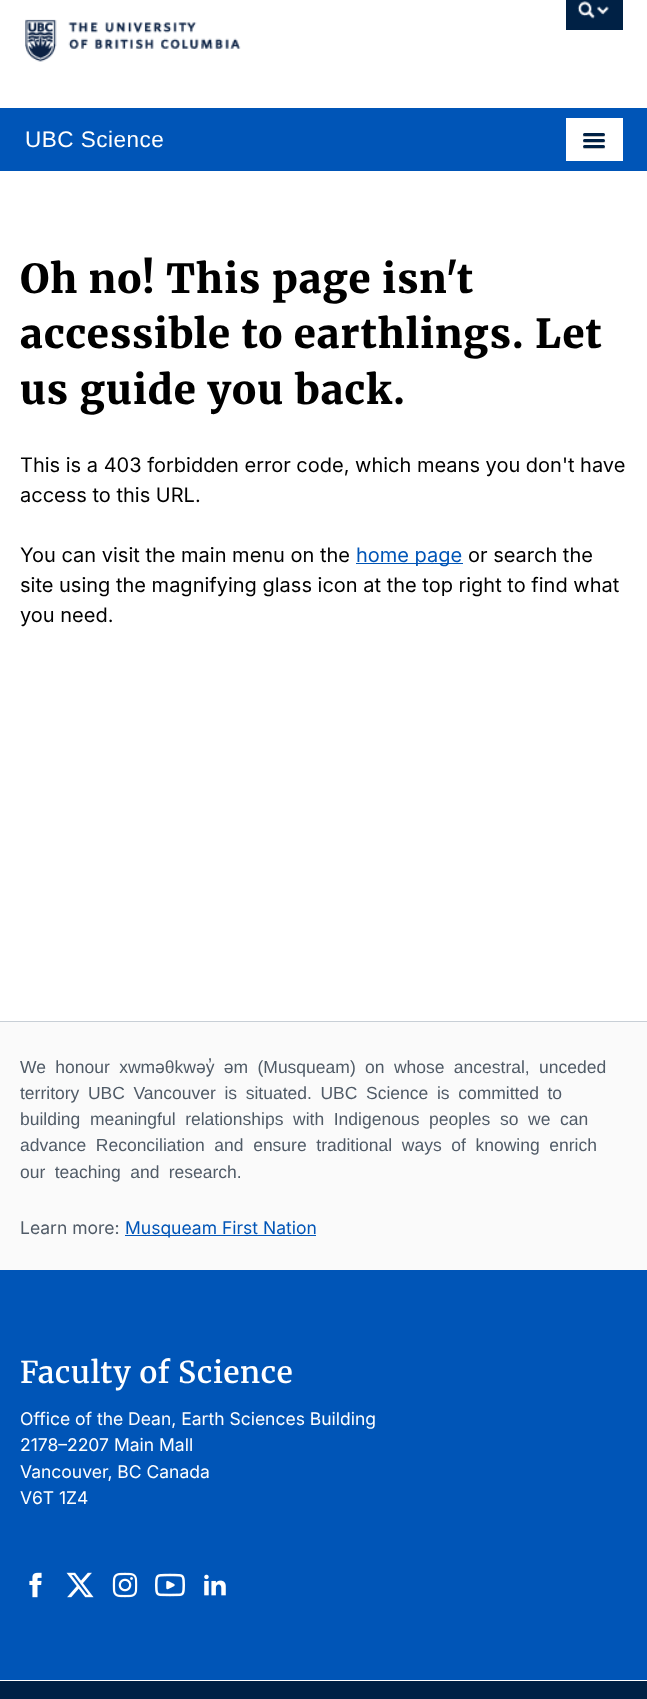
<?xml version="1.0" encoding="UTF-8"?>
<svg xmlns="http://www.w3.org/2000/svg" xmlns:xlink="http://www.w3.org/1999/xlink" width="647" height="1699">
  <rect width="100%" height="100%" fill="#ffffff" />
  <image x="25" y="19" width="216" height="43" xlink:href="image1.png" />
  <rect x="566" width="57" height="30" fill="#002145" />
  <image x="577" y="1" width="32" height="18" xlink:href="image2.png" />
  <rect y="108" width="647" height="63" fill="#0055b7" />
  <rect x="566" y="118" width="57" height="43" fill="#ffffff" />
  <path d="M 583 135 c -1 2.5 4 2 4.5 2 h 13 c 0 0 6.5 0.5 4 -2.5 l -0.5 0.5 z" fill="#bfbfbf" />
  <rect x="583" y="133" width="22" height="3" rx="1.5" fill="#002145" />
  <path d="M 583 141 c -0.5 2.5 4 2 4.5 2 h 13 c 0.5 0 6 0.5 4.5 -2.5 l -1 0.5 z" fill="#bfbfbf" />
  <rect x="583" y="139" width="22" height="3" rx="1.5" fill="#002145" />
  <path d="M 583 147.5 c -0.5 2 3.5 1.5 4.5 1.5 h 13 c 0.5 0 5.5 0.5 4.5 -2 l -1 0.5 c -2 0 -20.5 0 -21 0 z" fill="#bfbfbf" />
  <rect x="583" y="145" width="22" height="3" rx="1.5" fill="#002145" />
  <rect x="356" y="563" width="107" height="1" fill="#0055b7" />
  <rect y="1022" width="647" height="248" fill="#fafafa" />
  <rect y="1021" width="647" height="1" fill="#c8cfd6" />
  <rect x="125" y="1235" width="191" height="1" fill="#0055b7" />
  <rect y="1270" width="647" height="410" fill="#0055b7" />
  <image x="29" y="1572" width="13" height="26" xlink:href="image3.png" />
  <image x="66" y="1572" width="28" height="26" xlink:href="image4.png" />
  <image x="112" y="1572" width="26" height="26" xlink:href="image5.png" />
  <image x="155" y="1573" width="30" height="24" xlink:href="image6.png" />
  <image x="204" y="1574" width="22" height="22" xlink:href="image7.png" />
  <rect y="1681" width="647" height="18" fill="#002145" />
  <text x="25" y="147" style="font-family: Liberation Sans; font-size: 22.5px; letter-spacing: 0.5px; fill: #ffffff">UBC Science</text>
  <text x="20" y="293" style="font-family: Merriweather; font-size: 40px; font-weight: 900; letter-spacing: 1px; fill: #000000">Oh no! This page isn't</text>
  <text x="20" y="348" style="font-family: Merriweather; font-size: 40px; font-weight: 900; letter-spacing: 1px; fill: #000000">accessible to earthlings. Let</text>
  <text x="20" y="404" style="font-family: Merriweather; font-size: 40px; font-weight: 900; letter-spacing: 1px; fill: #000000">us guide you back.</text>
  <text x="20" y="472" style="font-family: Inter; font-size: 20px; fill: #000000">This is a 403 forbidden error code, which means you don't have</text>
  <text x="20" y="502" style="font-family: Inter; font-size: 20px; fill: #000000">access to this URL.</text>
  <text x="20" y="562" style="font-family: Inter; font-size: 20px; fill: #000000">You can visit the main menu on the</text>
  <text x="356" y="562" style="font-family: Inter; font-size: 20px; fill: #0055b7">home page</text>
  <text x="468" y="562" style="font-family: Inter; font-size: 20px; fill: #000000">or search the</text>
  <text x="20" y="592" style="font-family: Inter; font-size: 20px; fill: #000000">site using the magnifying glass icon at the top right to find what</text>
  <text x="20" y="622" style="font-family: Inter; font-size: 20px; fill: #000000">you need.</text>
  <text x="20" y="1073" word-spacing="4.5" style="font-family: Liberation Sans; font-size: 17.5px; fill: #505b67">We honour xwməθkwəy̓ əm (Musqueam) on whose ancestral, unceded</text>
  <text x="20" y="1099" word-spacing="3.75" style="font-family: Liberation Sans; font-size: 17.5px; fill: #505b67">territory UBC Vancouver is situated. UBC Science is committed to</text>
  <text x="20" y="1125" word-spacing="4.75" style="font-family: Liberation Sans; font-size: 17.5px; fill: #505b67">building meaningful relationships with Indigenous peoples so we can</text>
  <text x="20" y="1151" word-spacing="4.75" style="font-family: Liberation Sans; font-size: 17.5px; fill: #505b67">advance Reconciliation and ensure traditional ways of knowing enrich</text>
  <text x="20" y="1178" word-spacing="4.5" style="font-family: Liberation Sans; font-size: 17.5px; fill: #505b67">our teaching and research.</text>
  <text x="20" y="1234" style="font-family: Inter; font-size: 17.5px; fill: #505b67">Learn more:</text>
  <text x="125" y="1234" style="font-family: Inter; font-size: 17.5px; fill: #0055b7">Musqueam First Nation</text>
  <text x="20" y="1383" style="font-family: Merriweather; font-size: 30px; font-weight: 600; letter-spacing: 0.75px; fill: #ffffff">Faculty of Science</text>
  <text x="20" y="1425" style="font-family: Inter; font-size: 17.5px; fill: #ffffff">Office of the Dean, Earth Sciences Building</text>
  <text x="20" y="1451" style="font-family: Inter; font-size: 17.5px; fill: #ffffff">2178–2207 Main Mall</text>
  <text x="20" y="1478" style="font-family: Inter; font-size: 17.5px; fill: #ffffff">Vancouver, BC Canada</text>
  <text x="20" y="1504" style="font-family: Inter; font-size: 17.5px; fill: #ffffff">V6T 1Z4</text>
</svg>
